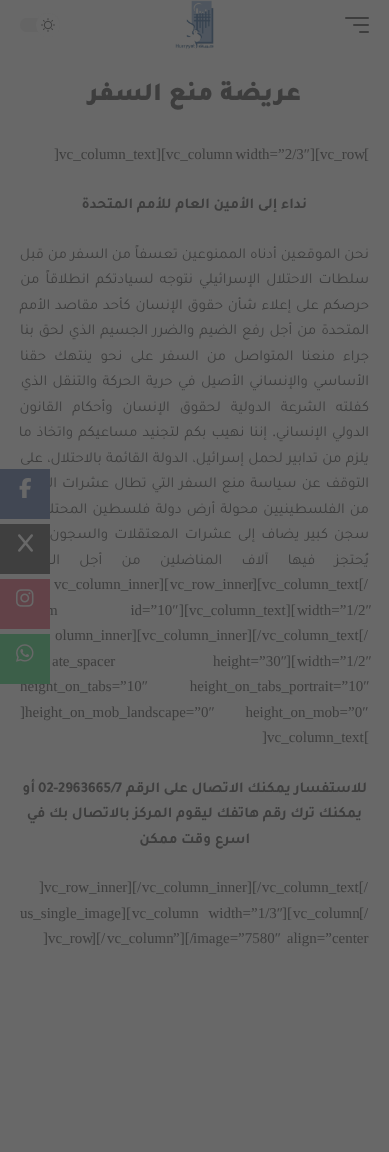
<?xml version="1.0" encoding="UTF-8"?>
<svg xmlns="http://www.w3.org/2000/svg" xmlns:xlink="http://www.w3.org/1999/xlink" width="389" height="1152">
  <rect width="100%" height="100%" fill="#686868" />
  <rect x="345" y="17" width="24" height="2" rx="1" fill="#3d3d3d" />
  <rect x="353" y="24" width="16" height="2" rx="1" fill="#3d3d3d" />
  <rect x="359" y="31" width="10" height="2" rx="1" fill="#3d3d3d" />
  <image x="175" y="0" width="39" height="49" xlink:href="image1.png" />
  <rect x="20" y="18" width="40" height="14" rx="7" fill="#646464" />
  <circle cx="48" cy="25" r="12" fill="#686868" />
  <image x="41" y="18" width="14" height="14" xlink:href="image2.png" />
  <text x="301" y="100" style="font-family: Tajawal; font-size: 26px; font-weight: 900; direction: rtl; fill: #3d3d3d">عريضة منع السفر</text>
  <text x="320" y="159" style="font-family: Liberation Serif; font-size: 15px; fill: #3d3d3d">vc_row</text>
  <text x="364" y="159" style="font-family: Liberation Serif; font-size: 15px; fill: #3d3d3d">[</text>
  <text x="310" y="159" style="font-family: Liberation Serif; font-size: 15px; fill: #3d3d3d">][</text>
  <text x="166" y="159" word-spacing="-1" style="font-family: Liberation Serif; font-size: 15px; fill: #3d3d3d">vc_column width=”2/3″</text>
  <text x="156" y="159" style="font-family: Liberation Serif; font-size: 15px; fill: #3d3d3d">][</text>
  <text x="54" y="159" style="font-family: Liberation Serif; font-size: 15px; fill: #3d3d3d">]vc_column_text</text>
  <text x="307" y="208" style="font-family: Tajawal; font-size: 15px; font-weight: bold; direction: rtl; fill: #3d3d3d">نداء إلى الأمين العام للأمم المتحدة</text>
  <text x="369" y="258" word-spacing="0.25" style="font-family: Tajawal; font-size: 15px; direction: rtl; fill: #3d3d3d">نحن الموقعين أدناه الممنوعين تعسفاً من السفر من قبل</text>
  <text x="369" y="283" word-spacing="2.5" style="font-family: Tajawal; font-size: 15px; direction: rtl; fill: #3d3d3d">سلطات الاحتلال الإسرائيلي نتوجه لسيادتكم انطلاقاً من</text>
  <text x="369" y="309" word-spacing="1.25" style="font-family: Tajawal; font-size: 15px; direction: rtl; fill: #3d3d3d">حرصكم على إعلاء شأن حقوق الإنسان كأحد مقاصد الأمم</text>
  <text x="369" y="334" word-spacing="1.25" style="font-family: Tajawal; font-size: 15px; direction: rtl; fill: #3d3d3d">المتحدة من أجل رفع الضيم والضرر الجسيم الذي لحق بنا</text>
  <text x="369" y="360" word-spacing="4.5" style="font-family: Tajawal; font-size: 15px; direction: rtl; fill: #3d3d3d">جراء منعنا المتواصل من السفر على نحو ينتهك حقنا</text>
  <text x="369" y="385" word-spacing="1.75" style="font-family: Tajawal; font-size: 15px; direction: rtl; fill: #3d3d3d">الأساسي والإنساني الأصيل في حرية الحركة والتنقل الذي</text>
  <text x="369" y="411" word-spacing="6.25" style="font-family: Tajawal; font-size: 15px; direction: rtl; fill: #3d3d3d">كفلته الشرعة الدولية لحقوق الإنسان وأحكام القانون</text>
  <text x="369" y="436" word-spacing="1.5" style="font-family: Tajawal; font-size: 15px; direction: rtl; fill: #3d3d3d">الدولي الإنساني</text>
  <text x="276" y="436" style="font-family: Liberation Serif; font-size: 15px; direction: rtl; fill: #3d3d3d">.</text>
  <text x="267" y="436" word-spacing="1.5" style="font-family: Tajawal; font-size: 15px; direction: rtl; fill: #3d3d3d">إننا نهيب بكم لتجنيد مساعيكم واتخاذ ما</text>
  <text x="369" y="462" word-spacing="0.75" style="font-family: Tajawal; font-size: 15px; direction: rtl; fill: #3d3d3d">يلزم من تدابير لحمل إسرائيل، الدولة القائمة بالاحتلال، على</text>
  <text x="369" y="487" word-spacing="1.5" style="font-family: Tajawal; font-size: 15px; direction: rtl; fill: #3d3d3d">التوقف عن سياسة منع السفر التي تطال عشرات الآلاف</text>
  <text x="369" y="513" word-spacing="1.5" style="font-family: Tajawal; font-size: 15px; direction: rtl; fill: #3d3d3d">من الفلسطينيين محولة أرض دولة فلسطين المحتلة إلى</text>
  <text x="369" y="538" word-spacing="2.5" style="font-family: Tajawal; font-size: 15px; direction: rtl; fill: #3d3d3d">سجن كبير يضاف إلى عشرات المعتقلات والسجون التي</text>
  <text x="369" y="564" word-spacing="15.75" style="font-family: Tajawal; font-size: 15px; direction: rtl; fill: #3d3d3d">يُحتجز فيها آلاف المناضلين من أجل الحرية</text>
  <text x="262" y="589" style="font-family: Liberation Serif; font-size: 15px; fill: #3d3d3d">vc_column_text[/</text>
  <text x="170" y="589" style="font-family: Liberation Serif; font-size: 15px; fill: #3d3d3d">vc_row_inner</text>
  <text x="252" y="589" style="font-family: Liberation Serif; font-size: 15px; fill: #3d3d3d">][</text>
  <text x="54" y="589" style="font-family: Liberation Serif; font-size: 15px; fill: #3d3d3d">vc_column_inner][</text>
  <text x="297" y="615" style="font-family: Liberation Serif; font-size: 15px; fill: #3d3d3d">width=”1/2″</text>
  <text x="189" y="615" style="font-family: Liberation Serif; font-size: 15px; fill: #3d3d3d">vc_column_text][</text>
  <text x="179" y="615" style="font-family: Liberation Serif; font-size: 15px; fill: #3d3d3d">][</text>
  <text x="46" y="615" word-spacing="69" style="font-family: Liberation Serif; font-size: 15px; fill: #3d3d3d">m id=”10″</text>
  <text x="262" y="640" style="font-family: Liberation Serif; font-size: 15px; fill: #3d3d3d">vc_column_text[/</text>
  <text x="142" y="640" style="font-family: Liberation Serif; font-size: 15px; fill: #3d3d3d">vc_column_inner][/</text>
  <text x="55" y="640" style="font-family: Liberation Serif; font-size: 15px; fill: #3d3d3d">olumn_inner][</text>
  <text x="297" y="666" style="font-family: Liberation Serif; font-size: 15px; fill: #3d3d3d">width=”1/2″</text>
  <text x="286" y="666" style="font-family: Liberation Serif; font-size: 15px; fill: #3d3d3d">][</text>
  <text x="52" y="666" word-spacing="94" style="font-family: Liberation Serif; font-size: 15px; fill: #3d3d3d">ate_spacer height=”30″</text>
  <text x="20" y="691" word-spacing="38" style="font-family: Liberation Serif; font-size: 15px; fill: #3d3d3d">height_on_tabs=”10″ height_on_tabs_portrait=”10″</text>
  <text x="25" y="717" word-spacing="27" style="font-family: Liberation Serif; font-size: 15px; fill: #3d3d3d">height_on_mob_landscape=”0″ height_on_mob=”0″</text>
  <text x="20" y="717" style="font-family: Liberation Serif; font-size: 15px; fill: #3d3d3d">]</text>
  <text x="364" y="742" style="font-family: Liberation Serif; font-size: 15px; fill: #3d3d3d">[</text>
  <text x="262" y="742" style="font-family: Liberation Serif; font-size: 15px; fill: #3d3d3d">]vc_column_text</text>
  <text x="367" y="792" style="font-family: Tajawal; font-size: 15px; font-weight: bold; direction: rtl; fill: #3d3d3d">للاستفسار يمكنك الاتصال على الرقم</text>
  <text x="38" y="792" style="font-family: Tajawal; font-size: 15px; font-weight: bold; fill: #3d3d3d">02-2963665/7</text>
  <text x="35" y="792" style="font-family: Tajawal; font-size: 15px; font-weight: bold; direction: rtl; fill: #3d3d3d">أو</text>
  <text x="362" y="817" style="font-family: Tajawal; font-size: 15px; font-weight: bold; direction: rtl; fill: #3d3d3d">يمكنك ترك رقم هاتفك ليقوم المركز بالاتصال بك في</text>
  <text x="250" y="843" style="font-family: Tajawal; font-size: 15px; font-weight: bold; direction: rtl; fill: #3d3d3d">اسرع وقت ممكن</text>
  <text x="262" y="892" style="font-family: Liberation Serif; font-size: 15px; fill: #3d3d3d">vc_column_text[/</text>
  <text x="142" y="892" style="font-family: Liberation Serif; font-size: 15px; fill: #3d3d3d">vc_column_inner][/</text>
  <text x="39" y="892" style="font-family: Liberation Serif; font-size: 15px; fill: #3d3d3d">]vc_row_inner</text>
  <text x="127" y="892" style="font-family: Liberation Serif; font-size: 15px; fill: #3d3d3d">][/</text>
  <text x="293" y="918" style="font-family: Liberation Serif; font-size: 15px; fill: #3d3d3d">vc_column</text>
  <text x="359" y="918" style="font-family: Liberation Serif; font-size: 15px; fill: #3d3d3d">[/</text>
  <text x="282" y="918" style="font-family: Liberation Serif; font-size: 15px; fill: #3d3d3d">][</text>
  <text x="132" y="918" word-spacing="6" style="font-family: Liberation Serif; font-size: 15px; fill: #3d3d3d">vc_column width=”1/3″</text>
  <text x="121" y="918" style="font-family: Liberation Serif; font-size: 15px; fill: #3d3d3d">][</text>
  <text x="20" y="918" style="font-family: Liberation Serif; font-size: 15px; fill: #3d3d3d">us_single_image</text>
  <text x="173" y="943" style="font-family: Liberation Serif; font-size: 15px; fill: #3d3d3d">”][/</text>
  <text x="193" y="943" word-spacing="2" style="font-family: Liberation Serif; font-size: 15px; fill: #3d3d3d">image=”7580″ align=”center</text>
  <text x="107" y="943" style="font-family: Liberation Serif; font-size: 15px; fill: #3d3d3d">vc_column</text>
  <text x="43" y="943" style="font-family: Liberation Serif; font-size: 15px; fill: #3d3d3d">]vc_row</text>
  <text x="91" y="943" style="font-family: Liberation Serif; font-size: 15px; fill: #3d3d3d">][/</text>
  <rect y="469" width="50" height="50" fill="#414753" />
  <image x="19" y="478" width="12" height="20" xlink:href="image3.png" />
  <rect y="524" width="50" height="50" fill="#3f3f3f" />
  <image x="18" y="534" width="15" height="18" xlink:href="image4.png" />
  <rect y="579" width="50" height="50" fill="#624248" />
  <image x="16" y="589" width="18" height="18" xlink:href="image5.png" />
  <rect y="634" width="50" height="50" fill="#3c5f49" />
  <image x="16" y="644" width="18" height="18" xlink:href="image6.png" />
</svg>
